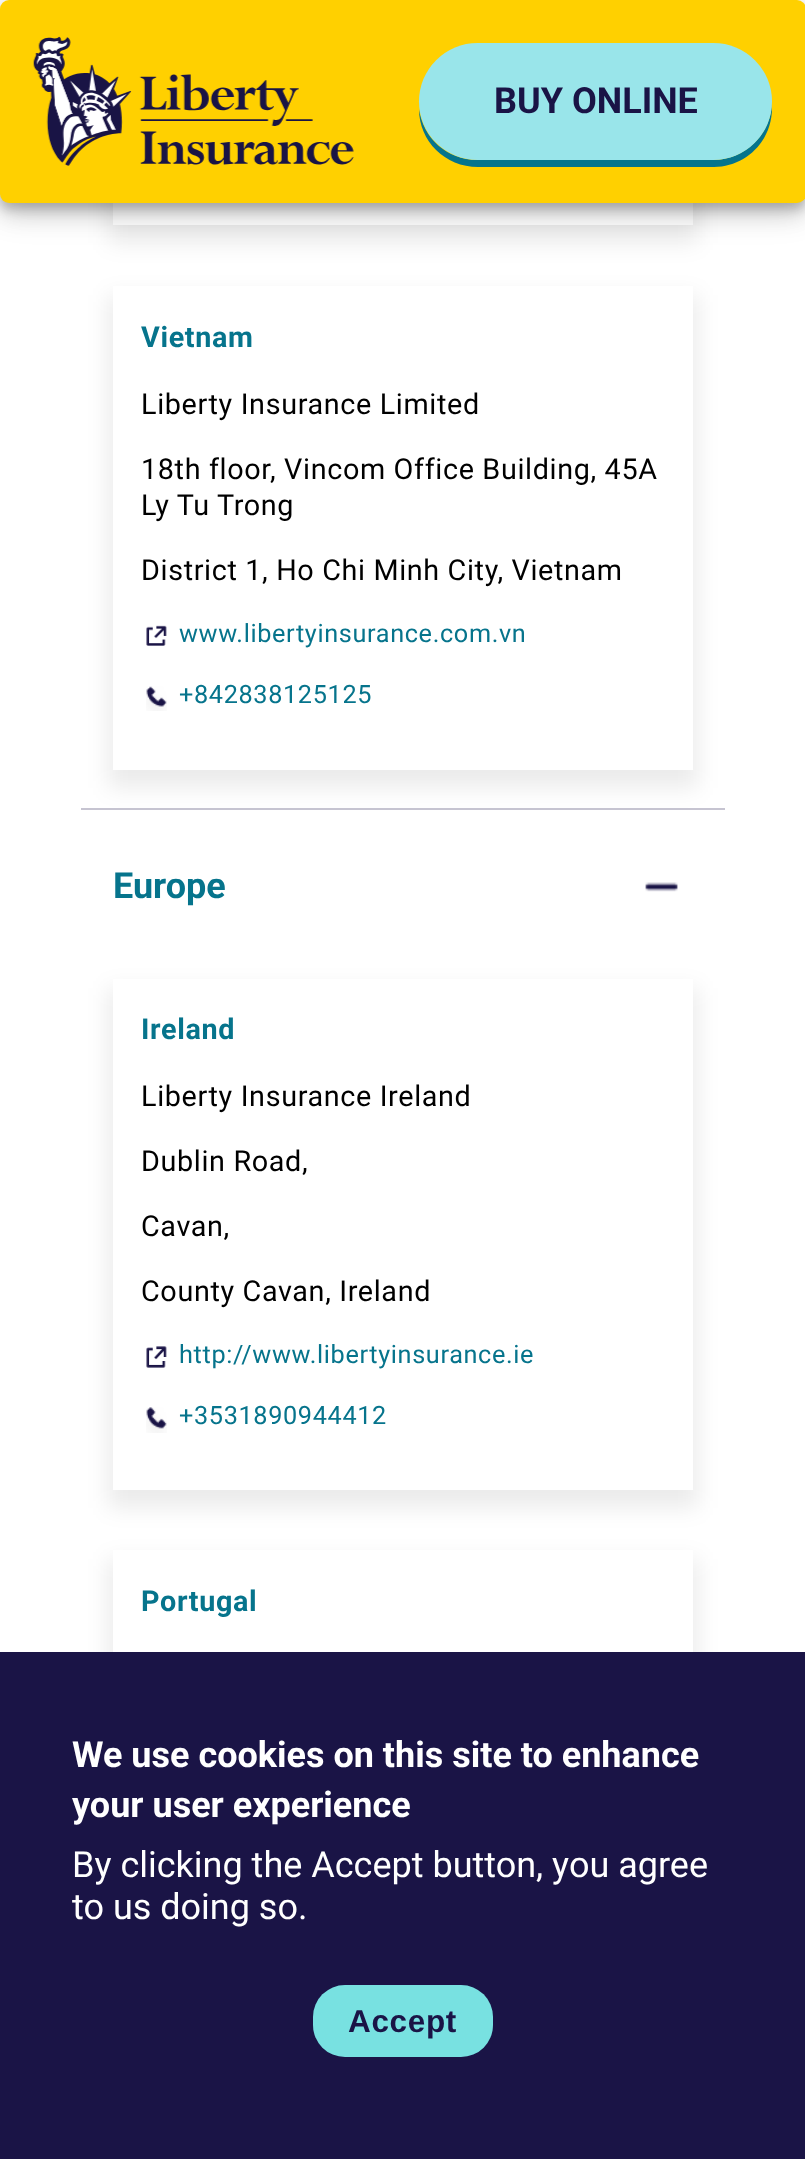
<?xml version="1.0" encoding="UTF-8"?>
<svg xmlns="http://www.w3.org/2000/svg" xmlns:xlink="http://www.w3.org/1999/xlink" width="805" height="2159">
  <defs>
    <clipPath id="clip1"><path d="M 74 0 h 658 v 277 h -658 z m 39 -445 h 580 v 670 h -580 z" clip-rule="evenodd" /></clipPath>
  </defs>
  <rect width="100%" height="100%" fill="#ffffff" />
  <rect y="14" width="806" height="202" rx="9" fill="#000000" fill-opacity="0.14" filter="blur(11px)" />
  <rect y="2" width="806" height="203" rx="9" fill="#000000" fill-opacity="0.12" filter="blur(20px)" />
  <rect y="7" width="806" height="202" rx="9" fill="#000000" fill-opacity="0.2" filter="blur(5.5px)" />
  <g clip-path="url(#clip1)">
    <rect x="108" y="-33" width="590" height="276" fill="#000000" fill-opacity="0.08" filter="blur(11px)" />
  </g>
  <rect width="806" height="203" rx="9" fill="#ffd000" />
  <image x="33" y="36" width="321" height="130" xlink:href="image1.png" />
  <path d="M 419 109 c 0 32 26 58 59 58 h 236 c 32 0 58 -26 58 -59 v -5 c -1 31 -27 57 -59 57 h -236 c -30 0 -54 -22 -58 -51 z" fill="#06748c" />
  <rect x="419" y="43" width="353" height="117" rx="58.5" fill="#99e5ea" />
  <rect x="81" y="808" width="644" height="2" fill="#c6c4d1" />
  <rect x="108" y="295" width="590" height="493" fill="#000000" fill-opacity="0.08" filter="blur(11px)" />
  <rect x="113" y="286" width="580" height="484" fill="#ffffff" />
  <image x="146" y="625" width="21" height="21" xlink:href="image2.png" />
  <image x="146" y="686" width="21" height="25" xlink:href="image3.png" />
  <image x="645" y="882" width="33" height="10" xlink:href="image4.png" />
  <rect x="108" y="988" width="590" height="520" fill="#000000" fill-opacity="0.08" filter="blur(11px)" />
  <rect x="113" y="979" width="580" height="511" fill="#ffffff" />
  <image x="146" y="1346" width="21" height="22" xlink:href="image5.png" />
  <image x="146" y="1407" width="21" height="26" xlink:href="image6.png" />
  <rect x="108" y="1559" width="590" height="520" fill="#000000" fill-opacity="0.08" filter="blur(11px)" />
  <rect x="113" y="1550" width="580" height="102" fill="#ffffff" />
  <rect y="1652" width="805" height="507" fill="#1a1446" />
  <rect x="313" y="1985" width="180" height="72" rx="32" fill="#78e1e1" />
  <text x="494" y="113" style="font-family: Roboto; font-size: 36px; font-weight: bold; fill: #1a1446">BUY ONLINE</text>
  <text x="141" y="347" style="font-family: Roboto; font-size: 28.75px; font-weight: bold; letter-spacing: 0.65px; fill: #06748c">Vietnam</text>
  <text x="141" y="414" style="font-family: Roboto; font-size: 28.75px; letter-spacing: 0.65px; fill: #000000">Liberty Insurance Limited</text>
  <text x="141" y="479" style="font-family: Roboto; font-size: 28.75px; letter-spacing: 0.65px; fill: #000000">18th floor, Vincom Office Building, 45A</text>
  <text x="141" y="515" style="font-family: Roboto; font-size: 28.75px; letter-spacing: 0.65px; fill: #000000">Ly Tu Trong</text>
  <text x="141" y="580" style="font-family: Roboto; font-size: 28.75px; letter-spacing: 0.65px; fill: #000000">District 1, Ho Chi Minh City, Vietnam</text>
  <text x="179" y="642" style="font-family: Roboto; font-size: 25.25px; letter-spacing: 0.65px; fill: #06748c">www.libertyinsurance.com.vn</text>
  <text x="179" y="703" style="font-family: Roboto; font-size: 25.25px; letter-spacing: 0.65px; fill: #06748c">+842838125125</text>
  <text x="113" y="898" style="font-family: Roboto; font-size: 36px; font-weight: bold; fill: #06748c">Europe</text>
  <text x="141" y="1039" style="font-family: Roboto; font-size: 28.75px; font-weight: bold; letter-spacing: 0.65px; fill: #06748c">Ireland</text>
  <text x="141" y="1106" style="font-family: Roboto; font-size: 28.75px; letter-spacing: 0.65px; fill: #000000">Liberty Insurance Ireland</text>
  <text x="141" y="1171" style="font-family: Roboto; font-size: 28.75px; letter-spacing: 0.65px; fill: #000000">Dublin Road,</text>
  <text x="141" y="1236" style="font-family: Roboto; font-size: 28.75px; letter-spacing: 0.65px; fill: #000000">Cavan,</text>
  <text x="141" y="1301" style="font-family: Roboto; font-size: 28.75px; letter-spacing: 0.65px; fill: #000000">County Cavan, Ireland</text>
  <text x="179" y="1363" style="font-family: Roboto; font-size: 25.25px; letter-spacing: 0.65px; fill: #06748c">http://www.libertyinsurance.ie</text>
  <text x="179" y="1424" style="font-family: Roboto; font-size: 25.25px; letter-spacing: 0.65px; fill: #06748c">+3531890944412</text>
  <text x="141" y="1611" style="font-family: Roboto; font-size: 28.75px; font-weight: bold; letter-spacing: 0.65px; fill: #06748c">Portugal</text>
  <text x="72" y="1767" style="font-family: Roboto; font-size: 36px; font-weight: bold; fill: #ffffff">We use cookies on this site to enhance</text>
  <text x="72" y="1817" style="font-family: Roboto; font-size: 36px; font-weight: bold; fill: #ffffff">your user experience</text>
  <text x="72" y="1877" style="font-family: Roboto; font-size: 36px; fill: #ffffff">By clicking the Accept button, you agree</text>
  <text x="72" y="1919" style="font-family: Roboto; font-size: 36px; fill: #ffffff">to us doing so.</text>
  <text x="348" y="2032" style="font-family: Liberation Sans; font-size: 31.5px; font-weight: bold; letter-spacing: 0.65px; fill: #1a1446">Accept</text>
</svg>
